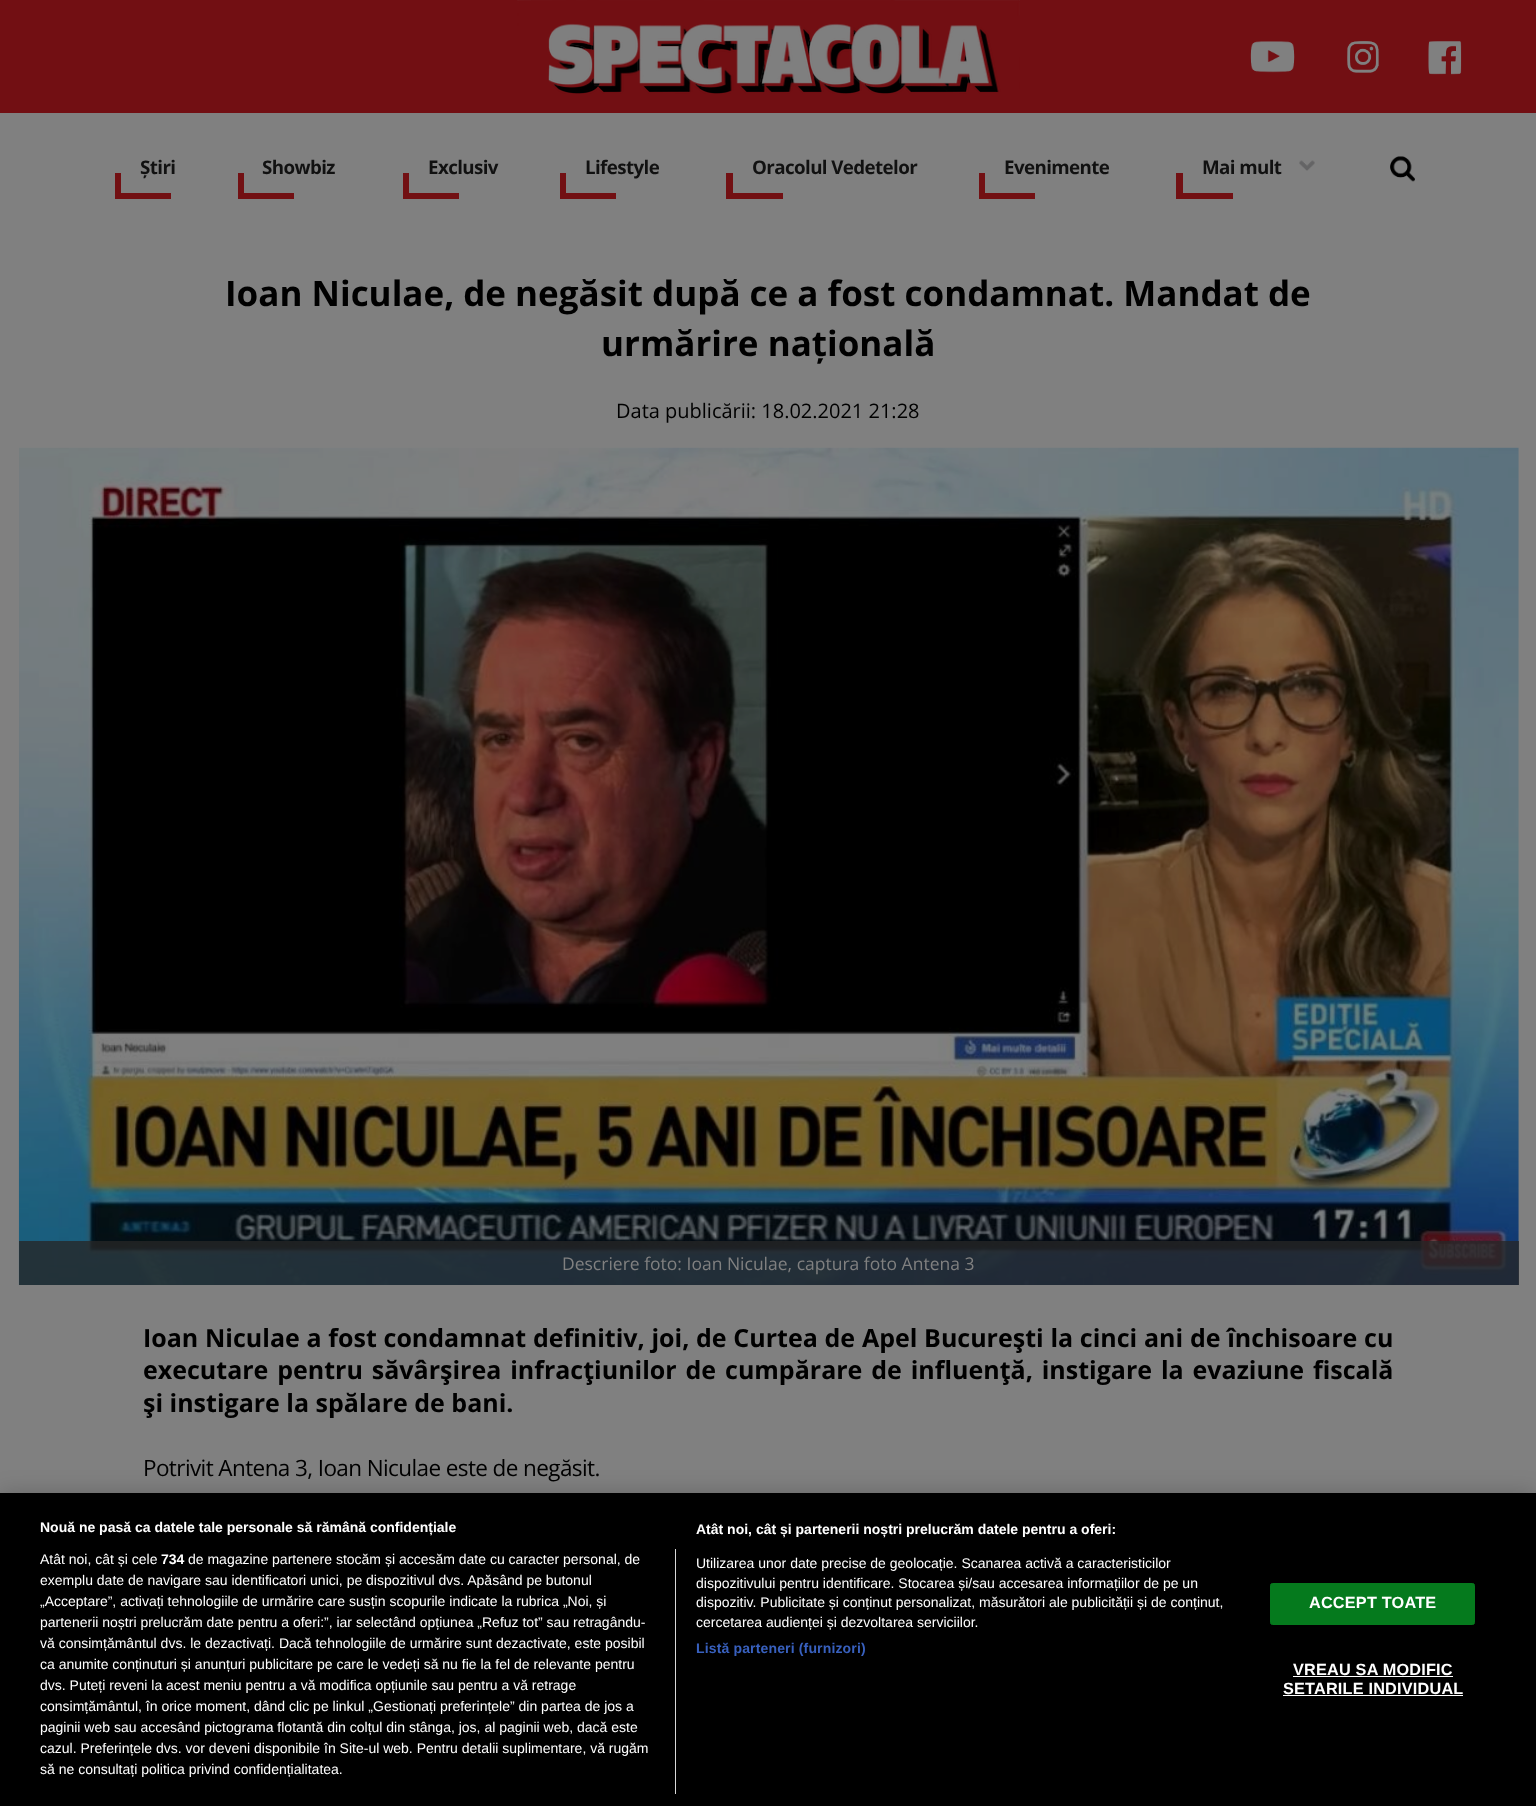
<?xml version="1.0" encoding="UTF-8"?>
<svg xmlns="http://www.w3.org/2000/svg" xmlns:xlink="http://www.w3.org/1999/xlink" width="1536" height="1806">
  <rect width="100%" height="100%" fill="#808080" />
  <rect width="1536" height="113" fill="#720f13" />
  <image x="517" y="0" width="503" height="94" xlink:href="image1.png" />
  <image x="1250" y="41" width="45" height="32" xlink:href="image2.png" />
  <image x="1347" y="41" width="32" height="32" xlink:href="image3.png" />
  <image x="1428" y="41" width="34" height="34" xlink:href="image4.png" />
  <rect x="115" y="193" width="56" height="6" fill="#721013" />
  <rect x="115" y="173" width="6" height="26" fill="#721013" />
  <rect x="238" y="193" width="56" height="6" fill="#721013" />
  <rect x="238" y="173" width="6" height="26" fill="#721013" />
  <rect x="403" y="193" width="56" height="6" fill="#721013" />
  <rect x="403" y="173" width="6" height="26" fill="#721013" />
  <rect x="560" y="193" width="56" height="6" fill="#721013" />
  <rect x="560" y="173" width="6" height="26" fill="#721013" />
  <rect x="726" y="193" width="57" height="6" fill="#721013" />
  <rect x="726" y="173" width="7" height="26" fill="#721013" />
  <rect x="979" y="193" width="56" height="6" fill="#721013" />
  <rect x="979" y="173" width="6" height="26" fill="#721013" />
  <image x="1299" y="160" width="16" height="11" xlink:href="image5.png" />
  <rect x="1176" y="193" width="57" height="6" fill="#721013" />
  <rect x="1176" y="173" width="7" height="26" fill="#721013" />
  <image x="1390" y="156" width="25" height="26" xlink:href="image6.png" />
  <image x="18" y="447" width="1501" height="838" xlink:href="image7.png" />
  <rect x="19" y="1241" width="1500" height="44" fill="#272727" fill-opacity="0.78" />
  <rect y="1493" width="1536" height="313" fill="#000000" fill-opacity="0.2" filter="blur(11px)" />
  <rect y="1493" width="1536" height="313" fill="#000000" />
  <rect x="675" y="1549" width="1" height="245" fill="#d8d8d8" />
  <rect x="1270.5" y="1583.5" width="204" height="41" rx="2" fill="#057a1d" stroke="#057a1d" />
  <rect x="1293" y="1676" width="160" height="1" fill="#ffffff" />
  <rect x="1283" y="1695" width="180" height="1" fill="#ffffff" />
  <text x="140" y="174" style="font-family: Open Sans; font-size: 18.75px; font-weight: bold; letter-spacing: -0.6px; fill: #111111">Știri</text>
  <text x="262" y="174" style="font-family: Open Sans; font-size: 18.75px; font-weight: bold; letter-spacing: -0.6px; fill: #111111">Showbiz</text>
  <text x="428" y="174" style="font-family: Open Sans; font-size: 18.75px; font-weight: bold; letter-spacing: -0.6px; fill: #111111">Exclusiv</text>
  <text x="585" y="174" style="font-family: Open Sans; font-size: 18.75px; font-weight: bold; letter-spacing: -0.6px; fill: #111111">Lifestyle</text>
  <text x="752" y="174" style="font-family: Open Sans; font-size: 18.75px; font-weight: bold; letter-spacing: -0.6px; fill: #111111">Oracolul Vedetelor</text>
  <text x="1004" y="174" style="font-family: Open Sans; font-size: 18.75px; font-weight: bold; letter-spacing: -0.6px; fill: #111111">Evenimente</text>
  <text x="1202" y="174" style="font-family: Open Sans; font-size: 18.75px; font-weight: bold; letter-spacing: -0.6px; fill: #111111">Mai mult</text>
  <text x="225" y="306" style="font-family: Open Sans; font-size: 35px; font-weight: bold; fill: #000000">Ioan Niculae, de negăsit după ce a fost condamnat. Mandat de</text>
  <text x="601" y="356" style="font-family: Open Sans; font-size: 35px; font-weight: bold; fill: #000000">urmărire națională</text>
  <text x="616" y="418" style="font-family: Open Sans; font-size: 20px; fill: #000000">Data publicării: 18.02.2021 21:28</text>
  <text x="562" y="1270" style="font-family: Open Sans; font-size: 17.5px; fill: #808080">Descriere foto: Ioan Niculae, captura foto Antena 3</text>
  <text x="143" y="1347" word-spacing="0.25" style="font-family: Open Sans; font-size: 25px; font-weight: bold; fill: #000000">Ioan Niculae a fost condamnat definitiv, joi, de Curtea de Apel Bucureşti la cinci ani de închisoare cu</text>
  <text x="143" y="1379" word-spacing="2.4" style="font-family: Open Sans; font-size: 25px; font-weight: bold; fill: #000000">executare pentru săvârşirea infracţiunilor de cumpărare de influenţă, instigare la evaziune fiscală</text>
  <text x="143" y="1412" style="font-family: Open Sans; font-size: 25px; font-weight: bold; fill: #000000">şi instigare la spălare de bani.</text>
  <text x="143" y="1476" style="font-family: Open Sans; font-size: 22.5px; letter-spacing: -0.6px; fill: #000000">Potrivit Antena 3, Ioan Niculae este de negăsit.</text>
  <text x="40" y="1532" style="font-family: Liberation Sans; font-size: 14px; font-weight: bold; fill: #ffffff">Nouă ne pasă ca datele tale personale să rămână confidențiale</text>
  <text x="696" y="1534" style="font-family: Liberation Sans; font-size: 14px; font-weight: bold; fill: #ffffff">Atât noi, cât și partenerii noștri prelucrăm datele pentru a oferi:</text>
  <text x="696" y="1568" style="font-family: Liberation Sans; font-size: 14px; fill: #ffffff">Utilizarea unor date precise de geolocație. Scanarea activă a caracteristicilor</text>
  <text x="696" y="1588" style="font-family: Liberation Sans; font-size: 14px; fill: #ffffff">dispozitivului pentru identificare. Stocarea și/sau accesarea informațiilor de pe un</text>
  <text x="696" y="1607" style="font-family: Liberation Sans; font-size: 14px; fill: #ffffff">dispozitiv. Publicitate și conținut personalizat, măsurători ale publicității și de conținut,</text>
  <text x="696" y="1627" style="font-family: Liberation Sans; font-size: 14px; fill: #ffffff">cercetarea audienței și dezvoltarea serviciilor.</text>
  <text x="696" y="1653" style="font-family: Liberation Sans; font-size: 14px; font-weight: bold; letter-spacing: 0.15px; fill: #3860be">Listă parteneri (furnizori)</text>
  <text x="40" y="1564" style="font-family: Liberation Sans; font-size: 14px; fill: #ffffff">Atât noi, cât și cele</text>
  <text x="161" y="1564" style="font-family: Liberation Sans; font-size: 14px; font-weight: bold; fill: #ffffff">734</text>
  <text x="188" y="1564" style="font-family: Liberation Sans; font-size: 14px; fill: #ffffff">de magazine partenere stocăm și accesăm date cu caracter personal, de</text>
  <text x="40" y="1585" style="font-family: Liberation Sans; font-size: 14px; fill: #ffffff">exemplu date de navigare sau identificatori unici, pe dispozitivul dvs. Apăsând pe butonul</text>
  <text x="40" y="1606" style="font-family: Liberation Sans; font-size: 14px; fill: #ffffff">„Acceptare”, activați tehnologiile de urmărire care susțin scopurile indicate la rubrica „Noi, și</text>
  <text x="40" y="1627" style="font-family: Liberation Sans; font-size: 14px; fill: #ffffff">partenerii noștri prelucrăm date pentru a oferi:”, iar selectând opțiunea „Refuz tot” sau retragându-</text>
  <text x="40" y="1648" style="font-family: Liberation Sans; font-size: 14px; fill: #ffffff">vă consimțământul dvs. le dezactivați. Dacă tehnologiile de urmărire sunt dezactivate, este posibil</text>
  <text x="40" y="1669" style="font-family: Liberation Sans; font-size: 14px; fill: #ffffff">ca anumite conținuturi și anunțuri publicitare pe care le vedeți să nu fie la fel de relevante pentru</text>
  <text x="40" y="1690" style="font-family: Liberation Sans; font-size: 14px; fill: #ffffff">dvs. Puteți reveni la acest meniu pentru a vă modifica opțiunile sau pentru a vă retrage</text>
  <text x="40" y="1711" style="font-family: Liberation Sans; font-size: 14px; fill: #ffffff">consimțământul, în orice moment, dând clic pe linkul „Gestionați preferințele” din partea de jos a</text>
  <text x="40" y="1732" style="font-family: Liberation Sans; font-size: 14px; fill: #ffffff">paginii web sau accesând pictograma flotantă din colțul din stânga, jos, al paginii web, dacă este</text>
  <text x="40" y="1753" style="font-family: Liberation Sans; font-size: 14px; fill: #ffffff">cazul. Preferințele dvs. vor deveni disponibile în Site-ul web. Pentru detalii suplimentare, vă rugăm</text>
  <text x="40" y="1774" style="font-family: Liberation Sans; font-size: 14px; fill: #ffffff">să ne consultați politica privind confidențialitatea.</text>
  <text x="1309" y="1608" style="font-family: Liberation Sans; font-size: 16.25px; font-weight: bold; letter-spacing: 0.2px; fill: #ffffff">ACCEPT TOATE</text>
  <text x="1293" y="1675" style="font-family: Liberation Sans; font-size: 16.25px; font-weight: bold; letter-spacing: 0.2px; fill: #ffffff">VREAU SA MODIFIC</text>
  <text x="1283" y="1694" style="font-family: Liberation Sans; font-size: 16.25px; font-weight: bold; letter-spacing: 0.2px; fill: #ffffff">SETARILE INDIVIDUAL</text>
</svg>
